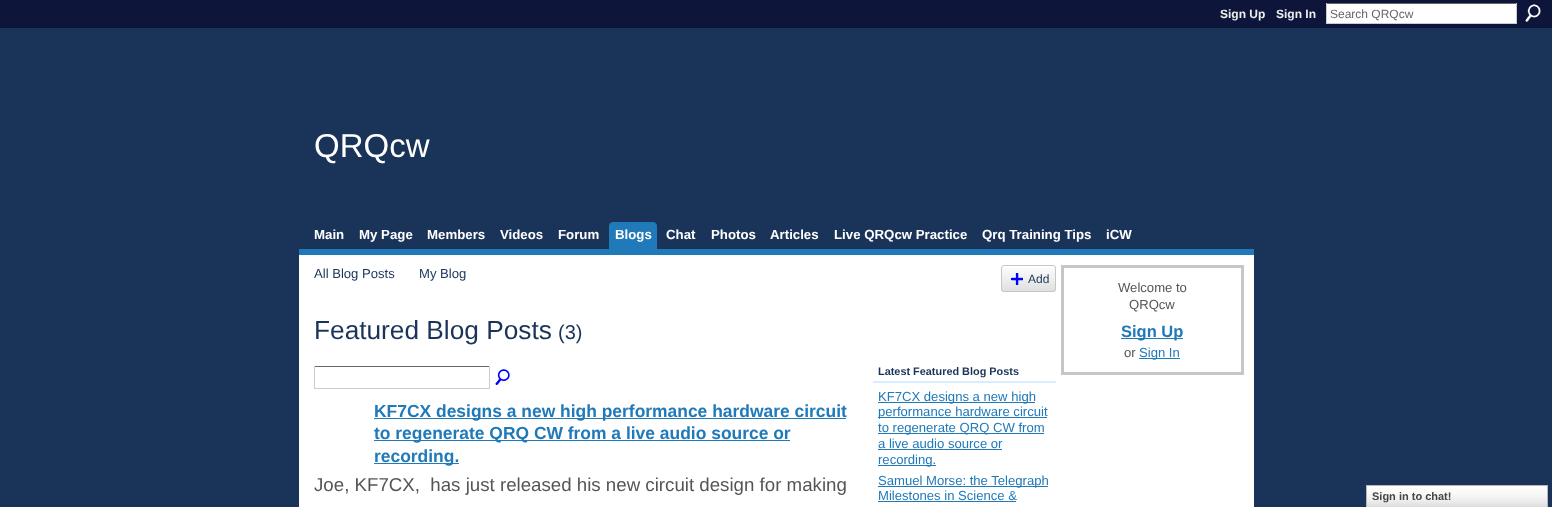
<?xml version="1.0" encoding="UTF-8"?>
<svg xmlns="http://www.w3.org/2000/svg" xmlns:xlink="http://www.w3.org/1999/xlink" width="1552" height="507">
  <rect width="100%" height="100%" fill="#1a3459" />
  <rect width="1552" height="28" fill="#0d163a" />
  <rect x="1327" y="4" width="189" height="19" fill="#ffffff" />
  <rect x="1326" y="3" width="191" height="1" fill="#666666" />
  <rect x="1516" y="3" width="1" height="21" fill="#cccccc" />
  <rect x="1326" y="23" width="191" height="1" fill="#cccccc" />
  <rect x="1326" y="3" width="1" height="21" fill="#cccccc" />
  <image x="1525" y="4" width="16" height="18" xlink:href="image1.png" />
  <rect x="299" y="249" width="955" height="6" fill="#2079b9" />
  <rect x="609" y="222" width="48" height="27" fill="#2079b9" />
  <image x="609" y="222" width="4" height="4" xlink:href="image2.png" />
  <image x="653" y="222" width="4" height="4" xlink:href="image3.png" />
  <rect x="299" y="255" width="955" height="252" fill="#ffffff" />
  <image x="1001" y="268" width="55" height="24" xlink:href="image4.png" />
  <rect x="1001.5" y="265.5" width="54" height="26" rx="2.5" fill="none" stroke="#c6c6c6" />
  <image x="1011" y="273" width="12" height="12" xlink:href="image5.png" />
  <rect x="314" y="366" width="176" height="1" fill="#666666" />
  <rect x="489" y="366" width="1" height="23" fill="#cccccc" />
  <rect x="314" y="388" width="176" height="1" fill="#cccccc" />
  <rect x="314" y="366" width="1" height="23" fill="#cccccc" />
  <image x="495" y="369" width="15" height="16" xlink:href="image6.png" />
  <rect x="374" y="418" width="472" height="1" fill="#2079b9" />
  <rect x="374" y="440" width="416" height="1" fill="#2079b9" />
  <rect x="374" y="463" width="85" height="1" fill="#2079b9" />
  <rect x="873" y="381" width="183" height="2" fill="#d6eeff" />
  <rect x="878" y="402" width="157" height="1" fill="#2079b9" />
  <rect x="878" y="417" width="169" height="1" fill="#2079b9" />
  <rect x="878" y="433" width="166" height="1" fill="#2079b9" />
  <rect x="878" y="449" width="124" height="1" fill="#2079b9" />
  <rect x="878" y="465" width="58" height="1" fill="#2079b9" />
  <rect x="878" y="486" width="170" height="1" fill="#2079b9" />
  <rect x="878" y="501" width="138" height="1" fill="#2079b9" />
  <rect x="1062.5" y="266.5" width="180" height="107" fill="none" stroke="#c6c6c6" stroke-width="3" />
  <rect x="1121" y="338" width="62" height="1" fill="#2079b9" />
  <rect x="1139" y="358" width="41" height="1" fill="#2079b9" />
  <image x="1367" y="486" width="180" height="21" xlink:href="image7.png" />
  <rect x="1366.5" y="485.5" width="181" height="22" fill="none" stroke="#b7b7b7" />
  <text x="1220" y="18" style="font-family: Liberation Sans; font-size: 12px; font-weight: bold; fill: #eeeeee">Sign Up</text>
  <text x="1276" y="18" style="font-family: Liberation Sans; font-size: 12px; font-weight: bold; fill: #eeeeee">Sign In</text>
  <text x="1330" y="18" style="font-family: Liberation Sans; font-size: 12px; fill: #666666">Search QRQcw</text>
  <text x="314" y="157" style="font-family: Liberation Sans; font-size: 33px; fill: #ffffff">QRQcw</text>
  <text x="314" y="239" style="font-family: Liberation Sans; font-size: 13.25px; font-weight: bold; fill: #ffffff">Main</text>
  <text x="359" y="239" style="font-family: Liberation Sans; font-size: 13.25px; font-weight: bold; fill: #ffffff">My Page</text>
  <text x="427" y="239" style="font-family: Liberation Sans; font-size: 13.25px; font-weight: bold; fill: #ffffff">Members</text>
  <text x="500" y="239" style="font-family: Liberation Sans; font-size: 13.25px; font-weight: bold; fill: #ffffff">Videos</text>
  <text x="558" y="239" style="font-family: Liberation Sans; font-size: 13.25px; font-weight: bold; fill: #ffffff">Forum</text>
  <text x="615" y="239" style="font-family: Liberation Sans; font-size: 13.25px; font-weight: bold; fill: #ffffff">Blogs</text>
  <text x="666" y="239" style="font-family: Liberation Sans; font-size: 13.25px; font-weight: bold; fill: #ffffff">Chat</text>
  <text x="711" y="239" style="font-family: Liberation Sans; font-size: 13.25px; font-weight: bold; fill: #ffffff">Photos</text>
  <text x="770" y="239" style="font-family: Liberation Sans; font-size: 13.25px; font-weight: bold; fill: #ffffff">Articles</text>
  <text x="834" y="239" style="font-family: Liberation Sans; font-size: 13.25px; font-weight: bold; fill: #ffffff">Live QRQcw Practice</text>
  <text x="982" y="239" style="font-family: Liberation Sans; font-size: 13.25px; font-weight: bold; fill: #ffffff">Qrq Training Tips</text>
  <text x="1106" y="239" style="font-family: Liberation Sans; font-size: 13.25px; font-weight: bold; fill: #ffffff">iCW</text>
  <text x="314" y="278" style="font-family: Liberation Sans; font-size: 13.1px; fill: #1a3459">All Blog Posts</text>
  <text x="419" y="278" style="font-family: Liberation Sans; font-size: 13.1px; fill: #1a3459">My Blog</text>
  <text x="1028" y="283" style="font-family: Liberation Sans; font-size: 12px; fill: #1a3459">Add</text>
  <text x="314" y="339" style="font-family: Liberation Sans; font-size: 26.25px; fill: #1a3459">Featured Blog Posts</text>
  <text x="558" y="339" style="font-family: Liberation Sans; font-size: 20px; fill: #1a3459">(3)</text>
  <text x="374" y="417" style="font-family: Liberation Sans; font-size: 17.45px; font-weight: bold; fill: #2079b9">KF7CX designs a new high performance hardware circuit</text>
  <text x="374" y="439" style="font-family: Liberation Sans; font-size: 17.45px; font-weight: bold; fill: #2079b9">to regenerate QRQ CW from a live audio source or</text>
  <text x="374" y="462" style="font-family: Liberation Sans; font-size: 17.45px; font-weight: bold; fill: #2079b9">recording.</text>
  <text x="314" y="491" style="font-family: Liberation Sans; font-size: 18.7px; fill: #555555" xml:space="preserve">Joe, KF7CX,  has just released his new circuit design for making</text>
  <text x="878" y="375" style="font-family: Liberation Sans; font-size: 10.9px; font-weight: bold; fill: #1a3459">Latest Featured Blog Posts</text>
  <text x="878" y="401" style="font-family: Liberation Sans; font-size: 13.1px; fill: #2079b9">KF7CX designs a new high</text>
  <text x="878" y="416" style="font-family: Liberation Sans; font-size: 13.1px; fill: #2079b9">performance hardware circuit</text>
  <text x="878" y="432" style="font-family: Liberation Sans; font-size: 13.1px; fill: #2079b9">to regenerate QRQ CW from</text>
  <text x="878" y="448" style="font-family: Liberation Sans; font-size: 13.1px; fill: #2079b9">a live audio source or</text>
  <text x="878" y="464" style="font-family: Liberation Sans; font-size: 13.1px; fill: #2079b9">recording.</text>
  <text x="878" y="485" style="font-family: Liberation Sans; font-size: 13.1px; fill: #2079b9">Samuel Morse: the Telegraph</text>
  <text x="878" y="500" style="font-family: Liberation Sans; font-size: 13.1px; fill: #2079b9">Milestones in Science &amp;</text>
  <text x="1118" y="292" style="font-family: Liberation Sans; font-size: 13.1px; fill: #555555">Welcome to</text>
  <text x="1129" y="309" style="font-family: Liberation Sans; font-size: 13.1px; fill: #555555">QRQcw</text>
  <text x="1121" y="337" style="font-family: Liberation Sans; font-size: 16.5px; font-weight: bold; fill: #2079b9">Sign Up</text>
  <text x="1124" y="357" style="font-family: Liberation Sans; font-size: 13.1px; fill: #555555">or</text>
  <text x="1139" y="357" style="font-family: Liberation Sans; font-size: 13.1px; fill: #2079b9">Sign In</text>
  <text x="1372" y="500" style="font-family: Liberation Sans; font-size: 11px; font-weight: bold; fill: #454545">Sign in to chat!</text>
</svg>
